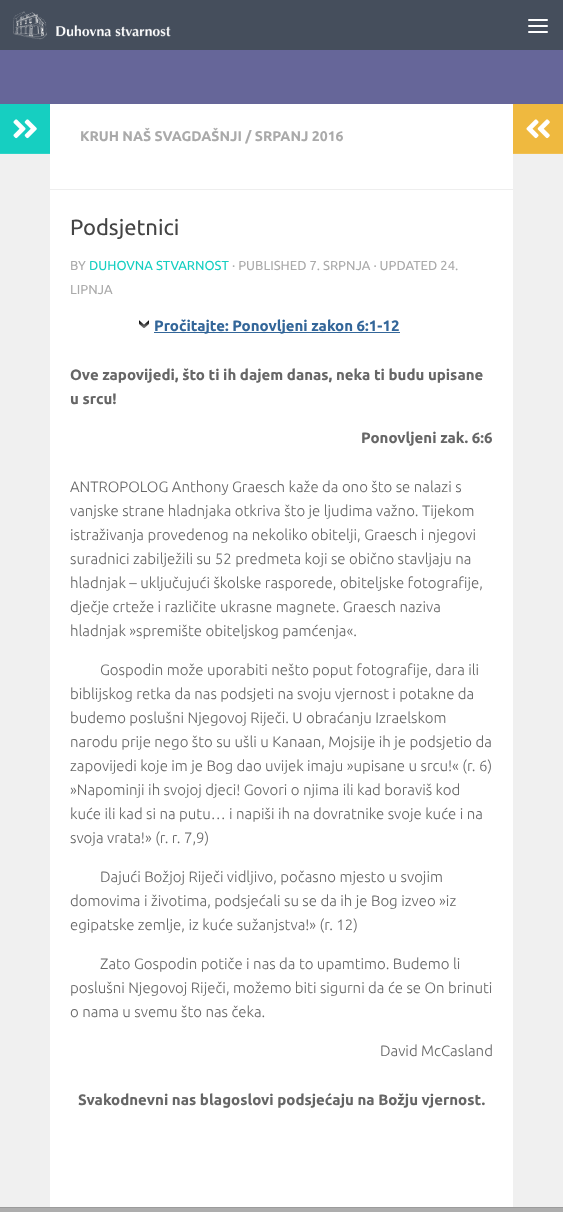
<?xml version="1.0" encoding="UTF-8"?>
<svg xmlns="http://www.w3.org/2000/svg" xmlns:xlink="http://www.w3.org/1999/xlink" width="563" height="1212">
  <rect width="100%" height="100%" fill="#adadad" />
  <rect y="105" width="563" height="1103" fill="#000000" fill-opacity="0.1" filter="blur(0.5px)" />
  <rect y="50" width="563" height="54" fill="#666699" />
  <rect width="563" height="50" fill="#454e5c" />
  <image x="13" y="11" width="158" height="29" xlink:href="image1.png" />
  <rect x="528" y="19" width="20" height="2" rx="1" fill="#ffffff" />
  <rect x="528" y="25" width="20" height="2" rx="1" fill="#ffffff" />
  <rect x="528" y="31" width="20" height="2" rx="1" fill="#ffffff" />
  <rect x="50" y="104" width="463" height="1103" fill="#ffffff" />
  <rect y="154" width="50" height="1053" fill="#f0f0f0" />
  <rect y="104" width="50" height="49" fill="#16cfc1" />
  <rect y="153" width="50" height="1" fill="#2dd4c7" />
  <image x="13" y="119" width="24" height="20" xlink:href="image2.png" />
  <rect x="50" y="189" width="463" height="1" fill="#eeeeee" />
  <image x="139" y="320" width="10" height="8" xlink:href="image3.png" />
  <rect x="154" y="332" width="246" height="1" fill="#336699" />
  <rect x="513" y="104" width="50" height="49" fill="#efb93f" />
  <rect x="513" y="153" width="50" height="1" fill="#f1c052" />
  <image x="526" y="119" width="24" height="20" xlink:href="image4.png" />
  <rect x="513" y="154" width="50" height="1053" fill="#f0f0f0" />
  <text x="80" y="141" style="font-family: Ubuntu; font-size: 14px; font-weight: bold; fill: #aaaaaa">KRUH NAŠ SVAGDAŠNJI / SRPANJ 2016</text>
  <text x="70" y="235" style="font-family: Ubuntu; font-size: 22px; fill: #444444">Podsjetnici</text>
  <text x="70" y="270" style="font-family: Ubuntu; font-size: 13px; fill: #aaaaaa">BY</text>
  <text x="89" y="270" style="font-family: Ubuntu; font-size: 13px; fill: #16cfc1">DUHOVNA STVARNOST</text>
  <text x="232" y="270" style="font-family: Ubuntu; font-size: 13px; fill: #aaaaaa">· PUBLISHED 7. SRPNJA · UPDATED 24.</text>
  <text x="70" y="294" style="font-family: Ubuntu; font-size: 13px; fill: #aaaaaa">LIPNJA</text>
  <text x="154" y="331" style="font-family: Ubuntu; font-size: 15px; font-weight: bold; fill: #336699">Pročitajte: Ponovljeni zakon 6:1-12</text>
  <text x="70" y="380" style="font-family: Ubuntu; font-size: 15px; font-weight: bold; fill: #666666">Ove zapovijedi, što ti ih dajem danas, neka ti budu upisane</text>
  <text x="70" y="404" style="font-family: Ubuntu; font-size: 15px; font-weight: bold; fill: #666666">u srcu!</text>
  <text x="361" y="443" style="font-family: Ubuntu; font-size: 15px; font-weight: bold; fill: #666666">Ponovljeni zak. 6:6</text>
  <text x="70" y="492" style="font-family: Ubuntu; font-size: 15px; font-weight: 300; fill: #666666">ANTROPOLOG Anthony Graesch kaže da ono što se nalazi s</text>
  <text x="70" y="516" style="font-family: Ubuntu; font-size: 15px; font-weight: 300; fill: #666666">vanjske strane hladnjaka otkriva što je ljudima važno. Tijekom</text>
  <text x="70" y="540" style="font-family: Ubuntu; font-size: 15px; font-weight: 300; fill: #666666">istraživanja provedenog na nekoliko obitelji, Graesch i njegovi</text>
  <text x="70" y="564" style="font-family: Ubuntu; font-size: 15px; font-weight: 300; fill: #666666">suradnici zabilježili su 52 predmeta koji se obično stavljaju na</text>
  <text x="70" y="588" style="font-family: Ubuntu; font-size: 15px; font-weight: 300; fill: #666666">hladnjak – uključujući školske rasporede, obiteljske fotografije,</text>
  <text x="70" y="612" style="font-family: Ubuntu; font-size: 15px; font-weight: 300; fill: #666666">dječje crteže i različite ukrasne magnete. Graesch naziva</text>
  <text x="70" y="636" style="font-family: Ubuntu; font-size: 15px; font-weight: 300; fill: #666666">hladnjak »spremište obiteljskog pamćenja«.</text>
  <text x="100" y="675" style="font-family: Ubuntu; font-size: 15px; font-weight: 300; fill: #666666">Gospodin može uporabiti nešto poput fotografije, dara ili</text>
  <text x="70" y="699" style="font-family: Ubuntu; font-size: 15px; font-weight: 300; fill: #666666">biblijskog retka da nas podsjeti na svoju vjernost i potakne da</text>
  <text x="70" y="723" style="font-family: Ubuntu; font-size: 15px; font-weight: 300; fill: #666666">budemo poslušni Njegovoj Riječi. U obraćanju Izraelskom</text>
  <text x="70" y="747" style="font-family: Ubuntu; font-size: 15px; font-weight: 300; fill: #666666">narodu prije nego što su ušli u Kanaan, Mojsije ih je podsjetio da</text>
  <text x="70" y="771" style="font-family: Ubuntu; font-size: 15px; font-weight: 300; fill: #666666">zapovijedi koje im je Bog dao uvijek imaju »upisane u srcu!« (r. 6)</text>
  <text x="70" y="795" style="font-family: Ubuntu; font-size: 15px; font-weight: 300; fill: #666666">»Napominji ih svojoj djeci! Govori o njima ili kad boraviš kod</text>
  <text x="70" y="819" style="font-family: Ubuntu; font-size: 15px; font-weight: 300; fill: #666666">kuće ili kad si na putu… i napiši ih na dovratnike svoje kuće i na</text>
  <text x="70" y="843" style="font-family: Ubuntu; font-size: 15px; font-weight: 300; fill: #666666">svoja vrata!» (r. r. 7,9)</text>
  <text x="100" y="882" style="font-family: Ubuntu; font-size: 15px; font-weight: 300; fill: #666666">Dajući Božjoj Riječi vidljivo, počasno mjesto u svojim</text>
  <text x="70" y="906" style="font-family: Ubuntu; font-size: 15px; font-weight: 300; fill: #666666">domovima i životima, podsjećali su se da ih je Bog izveo »iz</text>
  <text x="70" y="930" style="font-family: Ubuntu; font-size: 15px; font-weight: 300; fill: #666666">egipatske zemlje, iz kuće sužanjstva!» (r. 12)</text>
  <text x="100" y="969" style="font-family: Ubuntu; font-size: 15px; font-weight: 300; fill: #666666">Zato Gospodin potiče i nas da to upamtimo. Budemo li</text>
  <text x="70" y="993" style="font-family: Ubuntu; font-size: 15px; font-weight: 300; fill: #666666">poslušni Njegovoj Riječi, možemo biti sigurni da će se On brinuti</text>
  <text x="70" y="1017" style="font-family: Ubuntu; font-size: 15px; font-weight: 300; fill: #666666">o nama u svemu što nas čeka.</text>
  <text x="380" y="1056" style="font-family: Ubuntu; font-size: 15px; font-weight: 300; fill: #666666">David McCasland</text>
  <text x="78" y="1105" style="font-family: Ubuntu; font-size: 15px; font-weight: bold; fill: #666666">Svakodnevni nas blagoslovi podsjećaju na Božju vjernost.</text>
</svg>
